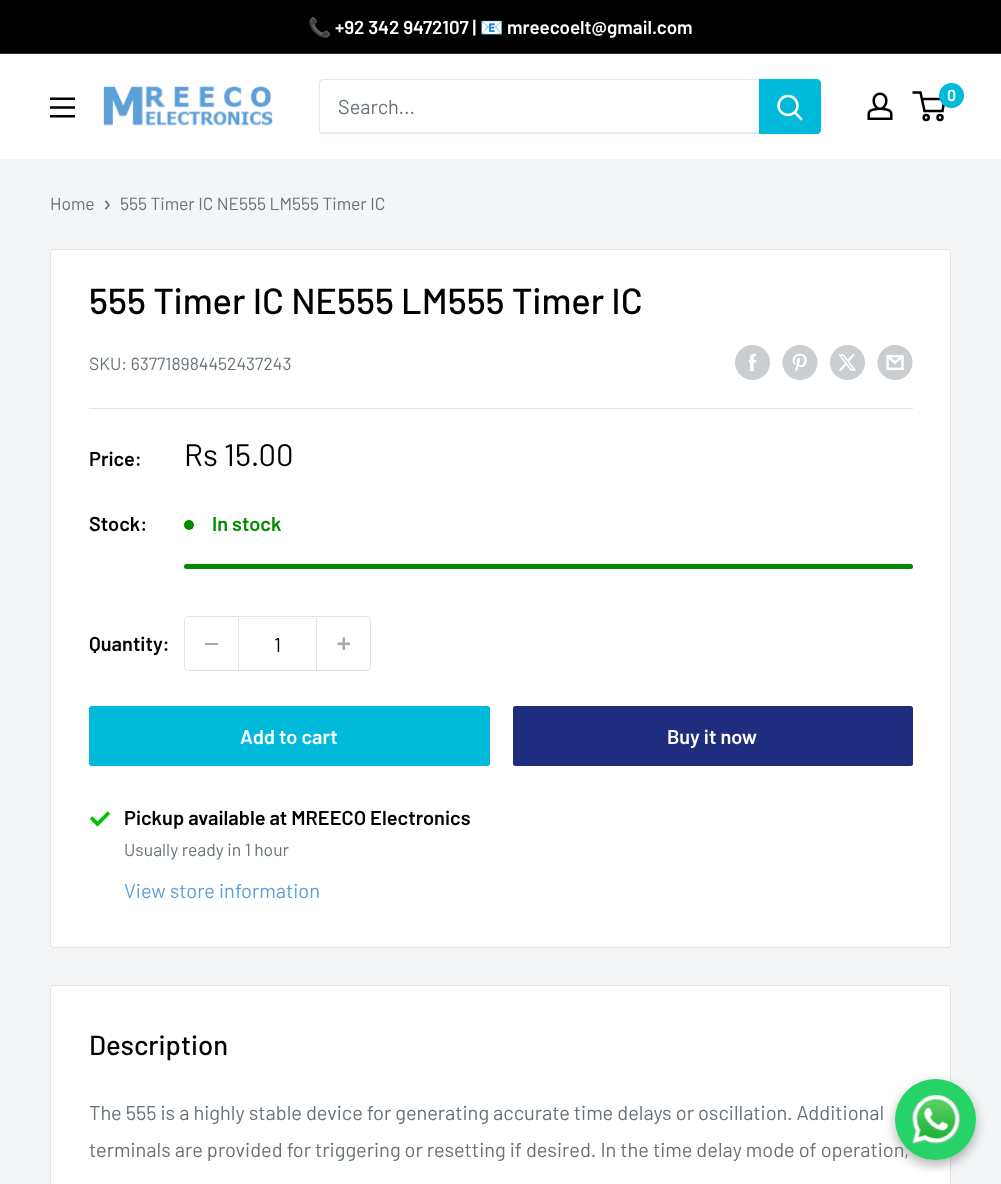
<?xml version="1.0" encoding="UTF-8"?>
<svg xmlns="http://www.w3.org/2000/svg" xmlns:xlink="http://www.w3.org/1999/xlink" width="1001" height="1184">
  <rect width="100%" height="100%" fill="#f3f5f6" />
  <rect width="1001" height="53" fill="#000000" />
  <rect y="53" width="1001" height="1" fill="#313548" />
  <rect y="54" width="1001" height="105" fill="#ffffff" />
  <image x="103" y="86" width="170" height="40" xlink:href="image1.png" />
  <image x="867" y="92" width="26" height="28" xlink:href="image2.png" />
  <circle cx="926.2" cy="117.5" r="2.5" fill="none" stroke="#000000" stroke-width="2.5" />
  <circle cx="940" cy="117.5" r="2.5" fill="none" stroke="#000000" stroke-width="2.5" />
  <path d="M 921.5 99 h 23 l -2 12 h -18 l -4 -18.5 h -8" fill="none" stroke="#000000" stroke-width="2.5" />
  <circle cx="951.5" cy="95.5" r="12.5" fill="#00badb" />
  <image x="50" y="97" width="25" height="21" xlink:href="image3.png" />
  <path d="M 319 132 c 1 1 2 2 4 2 h 494 c 2 0 4 -2 4 -4 v -47 c 0 -1 0 -2 -1 -3 v 41 c 0 4 2 11 -4 11 z" fill="#e3e7fa" />
  <path d="M 324 80 h 496 c -1 -1 -2 -1 -3 -1 h -494 c -2 0 -4 2 -4 4 v 47 c 0 1 1 3 2 3 l -1 -2 v -47 c 0 -2 2 -4 4 -4 z" fill="#a3afef" fill-opacity="0.3" />
  <path d="M 759 79 h 58 c 2 0 4 2 4 4 v 47 c 0 2 -2 4 -4 4 h -58 z" fill="#00badb" />
  <path d="M 801 119 l -6 -6.5" fill="none" stroke="#ffffff" stroke-width="2.5" stroke-linecap="square" />
  <circle cx="788" cy="105.5" r="9.5" fill="none" stroke="#ffffff" stroke-width="2.5" />
  <path d="M 106 201.5 l 3 3.5 l -3 3.5" fill="none" stroke="#677279" stroke-width="1.7" stroke-linecap="square" />
  <rect x="50.5" y="249.5" width="900" height="698" rx="3.5" fill="#ffffff" stroke="#e1e3e4" />
  <image x="735" y="345" width="35" height="35" xlink:href="image4.png" />
  <image x="782" y="345" width="36" height="35" xlink:href="image5.png" />
  <image x="830" y="345" width="35" height="35" xlink:href="image6.png" />
  <image x="877" y="345" width="36" height="35" xlink:href="image7.png" />
  <rect x="89" y="408" width="824" height="1" fill="#e1e3e4" />
  <circle cx="189" cy="525" r="5" fill="#008a00" />
  <rect x="184" y="564" width="729" height="5" rx="2.5" fill="#008a00" />
  <rect x="184.5" y="616.5" width="186" height="54" rx="3.5" fill="none" stroke="#e1e3e4" />
  <rect x="205" y="643" width="13" height="2" fill="#a4aaaf" />
  <rect x="239" y="618" width="77" height="1" fill="#f3f4f4" />
  <rect x="316" y="618" width="1" height="52" fill="#e1e3e4" />
  <rect x="238" y="618" width="1" height="52" fill="#e1e3e4" />
  <image x="337" y="637" width="13" height="13" xlink:href="image8.png" />
  <rect x="89" y="706" width="401" height="60" rx="2.5" fill="#00badb" />
  <rect x="513" y="706" width="400" height="60" rx="2.5" fill="#1e2d7d" />
  <path d="M 91 817.5 l 6.5 6.5 l 11.5 -11.5" fill="none" stroke="#00c200" stroke-width="3.8" />
  <rect x="50.5" y="985.5" width="900" height="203" rx="3.5" fill="#ffffff" stroke="#e1e3e4" />
  <rect x="895" y="1084" width="81" height="81" rx="40.5" fill="#000000" fill-opacity="0.3" filter="blur(6px)" />
  <text x="308" y="34" style="font-family: Noto Color Emoji; font-size: 18.75px; font-weight: bold; fill: #ffffff">📞</text>
  <text x="335" y="34" style="font-family: Barlow; font-size: 18.75px; font-weight: 600; fill: #ffffff">+92 342 9472107 |</text>
  <text x="480" y="34" style="font-family: Noto Color Emoji; font-size: 18.75px; font-weight: bold; fill: #ffffff">📧</text>
  <text x="507" y="34" style="font-family: Barlow; font-size: 18.75px; font-weight: 600; fill: #ffffff">mreecoelt@gmail.com</text>
  <text x="947" y="101" style="font-family: Barlow; font-size: 16px; font-weight: 600; fill: #ffffff">0</text>
  <text x="338" y="114" style="font-family: Barlow; font-size: 20px; fill: #677279">Search...</text>
  <text x="50" y="210" style="font-family: Barlow; font-size: 17.5px; fill: #677279">Home</text>
  <text x="120" y="210" style="font-family: Barlow; font-size: 17.5px; fill: #677279">555 Timer IC NE555 LM555 Timer IC</text>
  <text x="89" y="314" style="font-family: Barlow; font-size: 36.25px; font-weight: 500; fill: #000000">555 Timer IC NE555 LM555 Timer IC</text>
  <text x="89" y="370" style="font-family: Barlow; font-size: 17.5px; fill: #677279">SKU: 637718984452437243</text>
  <text x="89" y="466" style="font-family: Barlow; font-size: 20px; font-weight: 600; fill: #000000">Price:</text>
  <text x="184" y="466" style="font-family: Barlow; font-size: 31px; fill: #000000">Rs 15.00</text>
  <text x="89" y="531" style="font-family: Barlow; font-size: 20px; font-weight: 600; fill: #000000">Stock:</text>
  <text x="212" y="531" style="font-family: Barlow; font-size: 20px; font-weight: 600; fill: #008a00">In stock</text>
  <text x="89" y="651" style="font-family: Barlow; font-size: 20px; font-weight: 600; fill: #000000">Quantity:</text>
  <text x="274" y="652" style="font-family: Barlow; font-size: 20px; fill: #000000">1</text>
  <text x="240" y="744" style="font-family: Barlow; font-size: 20px; font-weight: 600; fill: #ffffff">Add to cart</text>
  <text x="667" y="744" style="font-family: Barlow; font-size: 20px; font-weight: 600; fill: #ffffff">Buy it now</text>
  <text x="124" y="825" style="font-family: Barlow; font-size: 20px; font-weight: 600; fill: #000000">Pickup available at MREECO Electronics</text>
  <text x="124" y="856" style="font-family: Barlow; font-size: 17.5px; fill: #677279">Usually ready in 1 hour</text>
  <text x="124" y="898" style="font-family: Barlow; font-size: 20px; fill: #5e9fd9">View store information</text>
  <text x="89" y="1055" style="font-family: Barlow; font-size: 27.5px; font-weight: 500; fill: #000000">Description</text>
  <text x="89" y="1120" style="font-family: Barlow; font-size: 20px; fill: #677279">The 555 is a highly stable device for generating accurate time delays or oscillation. Additional</text>
  <text x="89" y="1157" style="font-family: Barlow; font-size: 20px; fill: #677279">terminals are provided for triggering or resetting if desired. In the time delay mode of operation,</text>
  <circle cx="935.5" cy="1119.5" r="40.5" fill="#25d366" />
  <image x="911" y="1093" width="51" height="52" xlink:href="image9.png" />
</svg>
